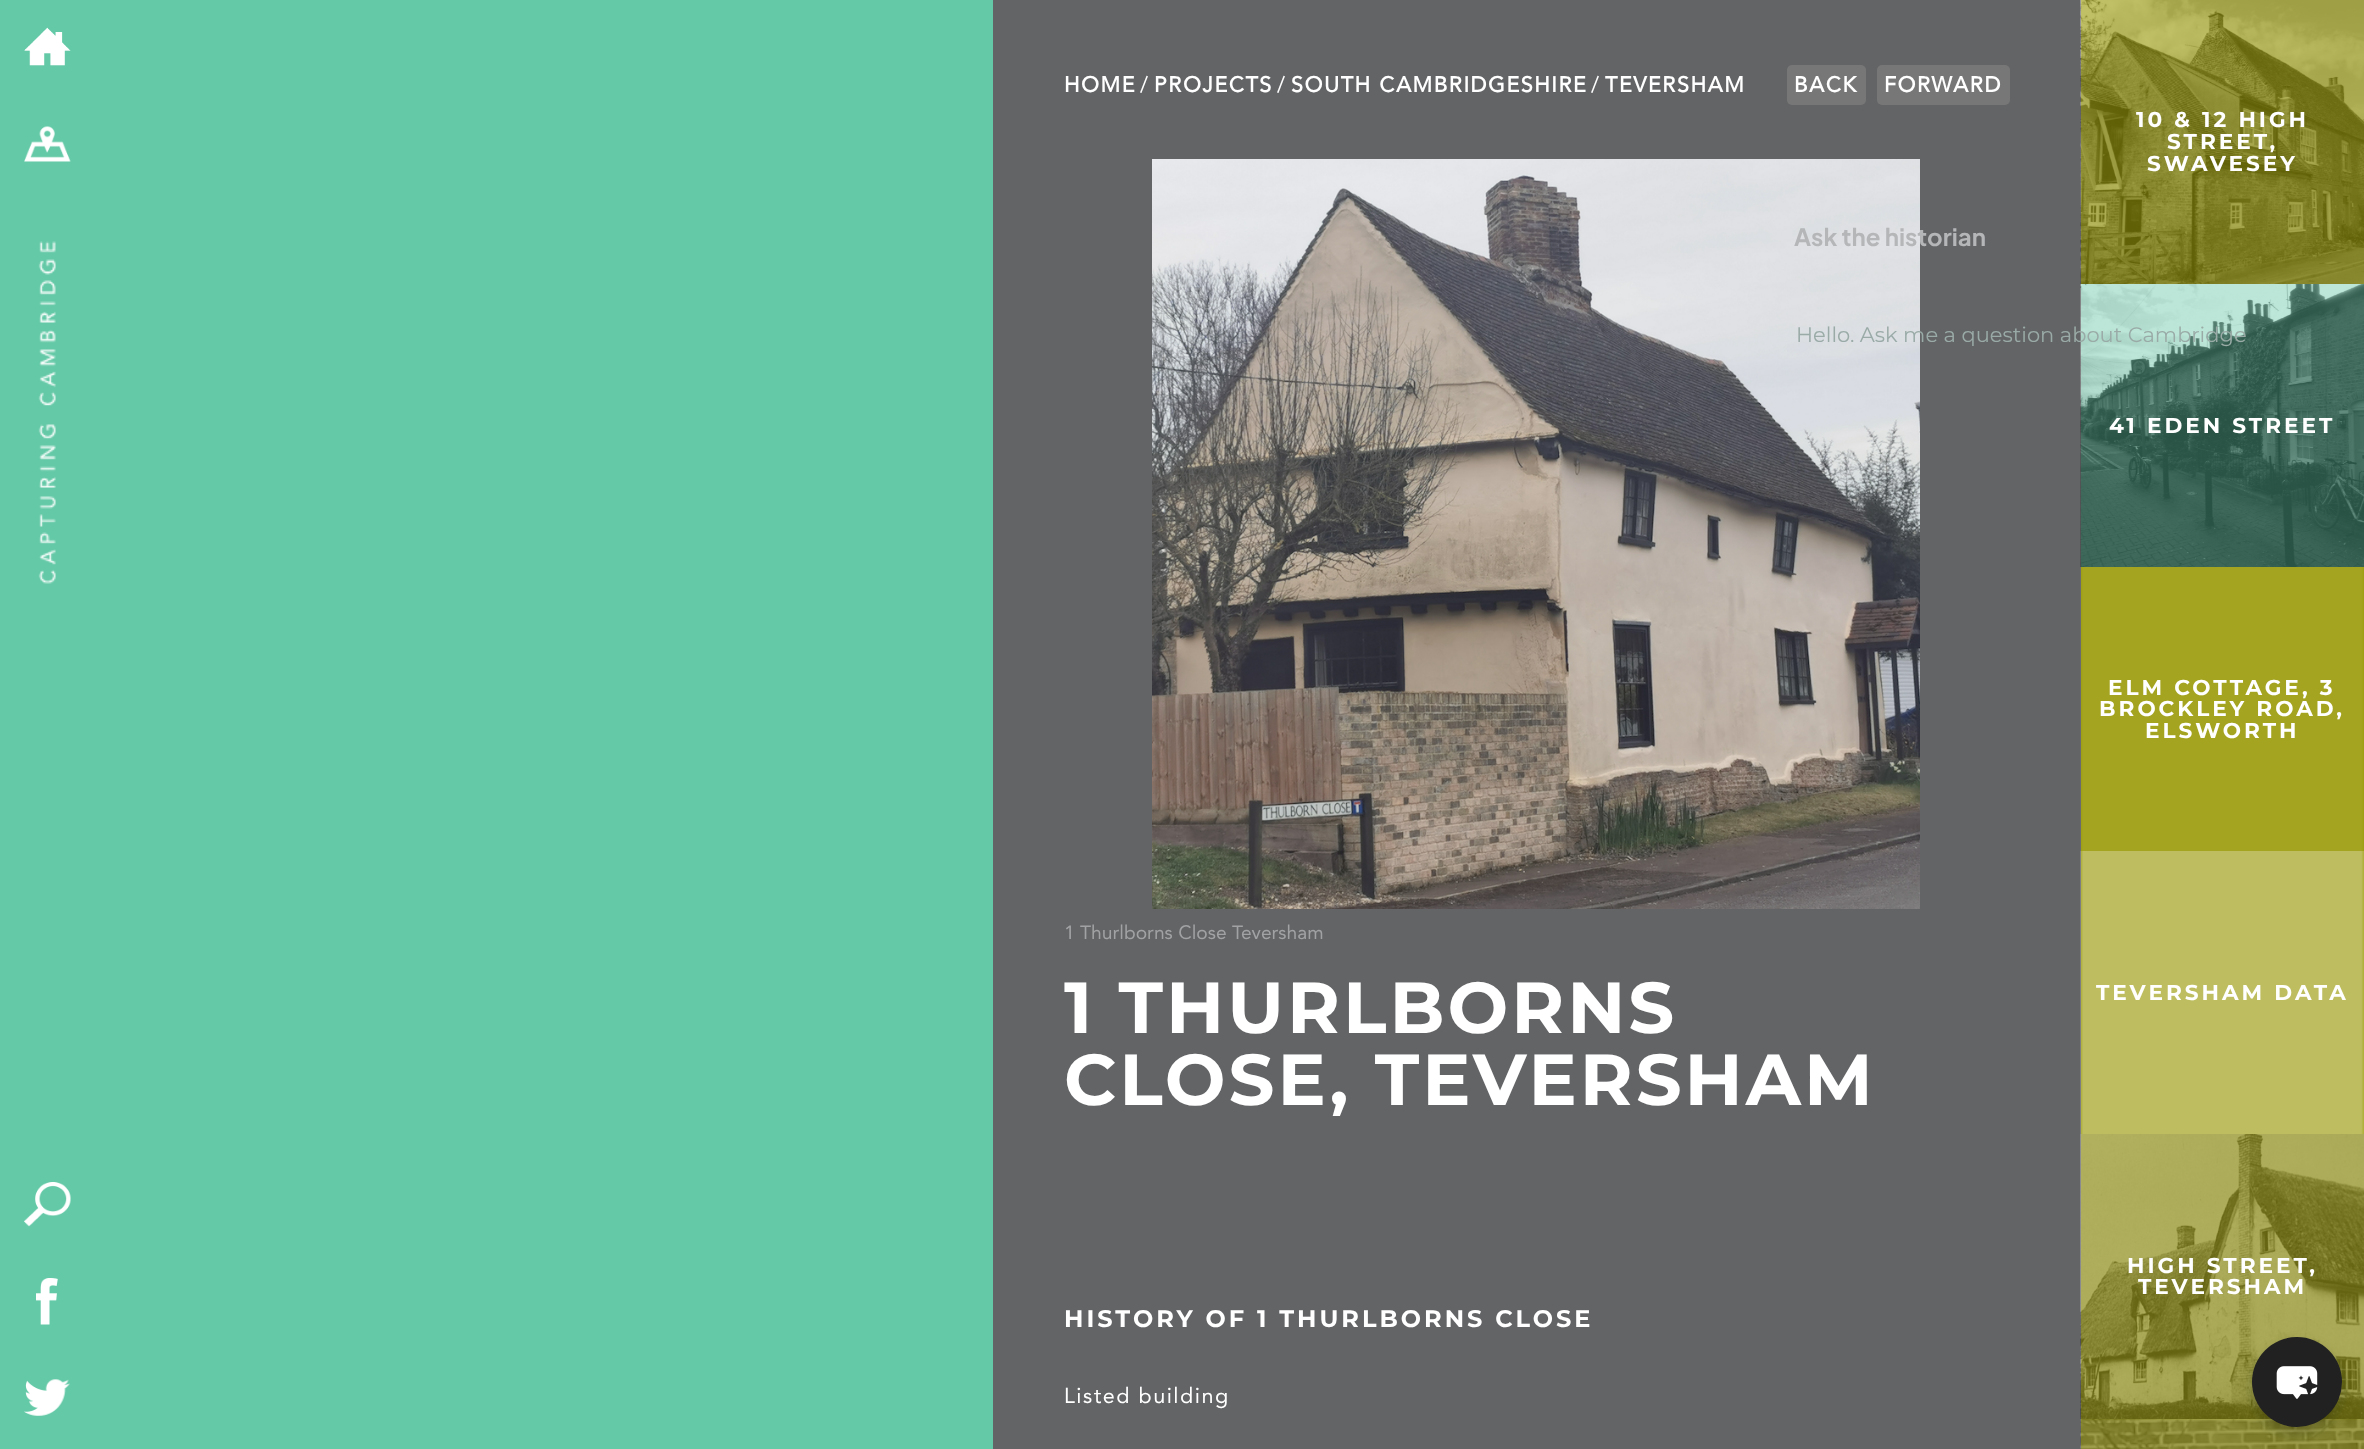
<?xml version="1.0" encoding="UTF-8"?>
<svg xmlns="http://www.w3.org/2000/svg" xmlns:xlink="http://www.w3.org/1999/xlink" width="2364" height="1449">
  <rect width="100%" height="100%" fill="#63c9a6" />
  <image x="24" y="27" width="47" height="39" xlink:href="image1.png" />
  <image x="24" y="126" width="47" height="36" xlink:href="image2.png" />
  <image x="38" y="241" width="18" height="343" xlink:href="image3.png" />
  <image x="24" y="1182" width="47" height="45" xlink:href="image4.png" />
  <image x="36" y="1278" width="22" height="47" xlink:href="image5.png" />
  <image x="24" y="1379" width="46" height="37" xlink:href="image6.png" />
  <rect x="993" width="1088" height="1449" fill="#636466" />
  <rect x="1787" y="65" width="79" height="40" rx="5" fill="#777777" />
  <rect x="1877" y="65" width="133" height="40" rx="5" fill="#777777" />
  <image x="1152" y="159" width="768" height="750" xlink:href="image7.png" />
  <rect x="2081" width="283" height="284" fill="#999905" />
  <image x="2080" y="0" width="284" height="284" xlink:href="image8.png" />
  <image x="2080" y="284" width="284" height="283" xlink:href="image9.png" />
  <rect x="2081" y="567" width="283" height="882" fill="#999905" />
  <image x="2080" y="567" width="284" height="284" xlink:href="image10.png" />
  <image x="2080" y="851" width="284" height="283" xlink:href="image11.png" />
  <image x="2080" y="1134" width="284" height="285" xlink:href="image12.png" />
  <image x="2080" y="1419" width="284" height="30" xlink:href="image13.png" />
  <rect x="2252" y="1343" width="90" height="90" rx="45" fill="#000000" fill-opacity="0.2" filter="blur(6px)" />
  <circle cx="2297" cy="1382" r="45" fill="#212121" />
  <image x="2276" y="1366" width="42" height="33" xlink:href="image14.png" />
  <text x="1064" y="92" style="font-family: Avenir; font-size: 21.6px; font-weight: bold; letter-spacing: 1.5px; fill: #ffffff">HOME</text>
  <text x="1140" y="92" style="font-family: Avenir; font-size: 21.6px; letter-spacing: 1.5px; fill: #ffffff">/</text>
  <text x="1154" y="92" style="font-family: Avenir; font-size: 21.6px; font-weight: bold; letter-spacing: 1.5px; fill: #ffffff">PROJECTS</text>
  <text x="1277" y="92" style="font-family: Avenir; font-size: 21.6px; letter-spacing: 1.5px; fill: #ffffff">/</text>
  <text x="1291" y="92" style="font-family: Avenir; font-size: 21.6px; font-weight: bold; letter-spacing: 1.5px; fill: #ffffff">SOUTH CAMBRIDGESHIRE</text>
  <text x="1591" y="92" style="font-family: Avenir; font-size: 21.6px; letter-spacing: 1.5px; fill: #ffffff">/</text>
  <text x="1605" y="92" style="font-family: Avenir; font-size: 21.6px; font-weight: bold; letter-spacing: 1.5px; fill: #ffffff">TEVERSHAM</text>
  <text x="1794" y="92" style="font-family: Avenir; font-size: 21.6px; font-weight: bold; letter-spacing: 1.5px; fill: #ffffff">BACK</text>
  <text x="1884" y="92" style="font-family: Avenir; font-size: 21.6px; font-weight: bold; letter-spacing: 1.5px; fill: #ffffff">FORWARD</text>
  <text x="1064" y="939" style="font-family: Avenir; font-size: 19.25px; fill: #a1a2a3">1 Thurlborns Close Teversham</text>
  <text x="1064" y="1033" style="font-family: Montserrat; font-size: 72px; font-weight: bold; letter-spacing: 3px; fill: #ffffff">1 THURLBORNS</text>
  <text x="1064" y="1105" style="font-family: Montserrat; font-size: 72px; font-weight: bold; letter-spacing: 3px; fill: #ffffff">CLOSE, TEVERSHAM</text>
  <text x="1064" y="1327" style="font-family: Montserrat; font-size: 24px; font-weight: bold; letter-spacing: 3px; fill: #ffffff">HISTORY OF 1 THURLBORNS CLOSE</text>
  <text x="1064" y="1403" style="font-family: Avenir; font-size: 21.6px; letter-spacing: 1.5px; fill: #ffffff">Listed building</text>
  <text x="2136" y="127" style="font-family: Montserrat; font-size: 21.6px; font-weight: bold; letter-spacing: 3px; fill: #ffffff">10 &amp; 12 HIGH</text>
  <text x="2167" y="149" style="font-family: Montserrat; font-size: 21.6px; font-weight: bold; letter-spacing: 3px; fill: #ffffff">STREET,</text>
  <text x="2147" y="171" style="font-family: Montserrat; font-size: 21.6px; font-weight: bold; letter-spacing: 3px; fill: #ffffff">SWAVESEY</text>
  <text x="2109" y="433" style="font-family: Montserrat; font-size: 21.6px; font-weight: bold; letter-spacing: 3px; fill: #ffffff">41 EDEN STREET</text>
  <text x="2108" y="695" style="font-family: Montserrat; font-size: 21.6px; font-weight: bold; letter-spacing: 3px; fill: #ffffff">ELM COTTAGE, 3</text>
  <text x="2099" y="716" style="font-family: Montserrat; font-size: 21.6px; font-weight: bold; letter-spacing: 3px; fill: #ffffff">BROCKLEY ROAD,</text>
  <text x="2145" y="738" style="font-family: Montserrat; font-size: 21.6px; font-weight: bold; letter-spacing: 3px; fill: #ffffff">ELSWORTH</text>
  <text x="2096" y="1000" style="font-family: Montserrat; font-size: 21.6px; font-weight: bold; letter-spacing: 3px; fill: #ffffff">TEVERSHAM DATA</text>
  <text x="2127" y="1273" style="font-family: Montserrat; font-size: 21.6px; font-weight: bold; letter-spacing: 3px; fill: #ffffff">HIGH STREET,</text>
  <text x="2138" y="1294" style="font-family: Montserrat; font-size: 21.6px; font-weight: bold; letter-spacing: 3px; fill: #ffffff">TEVERSHAM</text>
  <text x="1794" y="246" style="font-family: Plus Jakarta Sans; font-size: 24px; font-weight: bold; fill: #b4b6b8">Ask the historian</text>
  <text x="1796" y="342" style="font-family: Montserrat; font-size: 21px; fill: #9aaba7">Hello. Ask me a question about Cambridge</text>
</svg>
